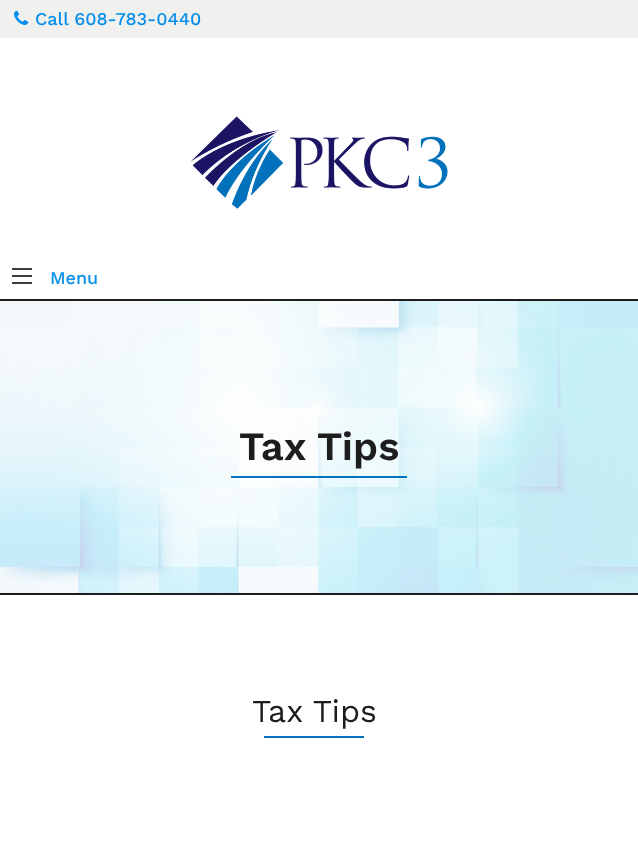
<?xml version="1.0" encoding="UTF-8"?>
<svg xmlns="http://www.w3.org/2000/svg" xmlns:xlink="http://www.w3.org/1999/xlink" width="638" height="857">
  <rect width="100%" height="100%" fill="#ffffff" />
  <rect y="299" width="638" height="2" fill="#1d1d1e" />
  <rect width="638" height="38" fill="#f0f0ef" />
  <image x="14" y="10" width="15" height="15" xlink:href="image1.png" />
  <image x="191" y="116" width="257" height="93" xlink:href="image2.png" />
  <rect x="12" y="282" width="20" height="2" fill="#3d3d3e" />
  <rect x="12" y="275" width="20" height="2" fill="#3d3d3e" />
  <rect x="12" y="268" width="20" height="2" fill="#3d3d3e" />
  <rect y="593" width="638" height="2" fill="#1d1d1e" />
  <image x="0" y="301" width="638" height="292" xlink:href="image3.png" />
  <rect x="231" y="476" width="176" height="2" fill="#0472bc" />
  <rect x="264" y="736" width="100" height="2" fill="#0472bc" />
  <text x="35" y="25" style="font-family: Work Sans; font-size: 18px; font-weight: 500; fill: #058eeb">Call 608-783-0440</text>
  <text x="50" y="284" style="font-family: Work Sans; font-size: 18px; font-weight: 500; fill: #058eeb">Menu</text>
  <text x="239" y="460" style="font-family: Work Sans; font-size: 40px; font-weight: 600; fill: #1d1d1e">Tax Tips</text>
  <text x="252" y="722" style="font-family: Work Sans; font-size: 32px; fill: #1d1d1e">Tax Tips</text>
</svg>
